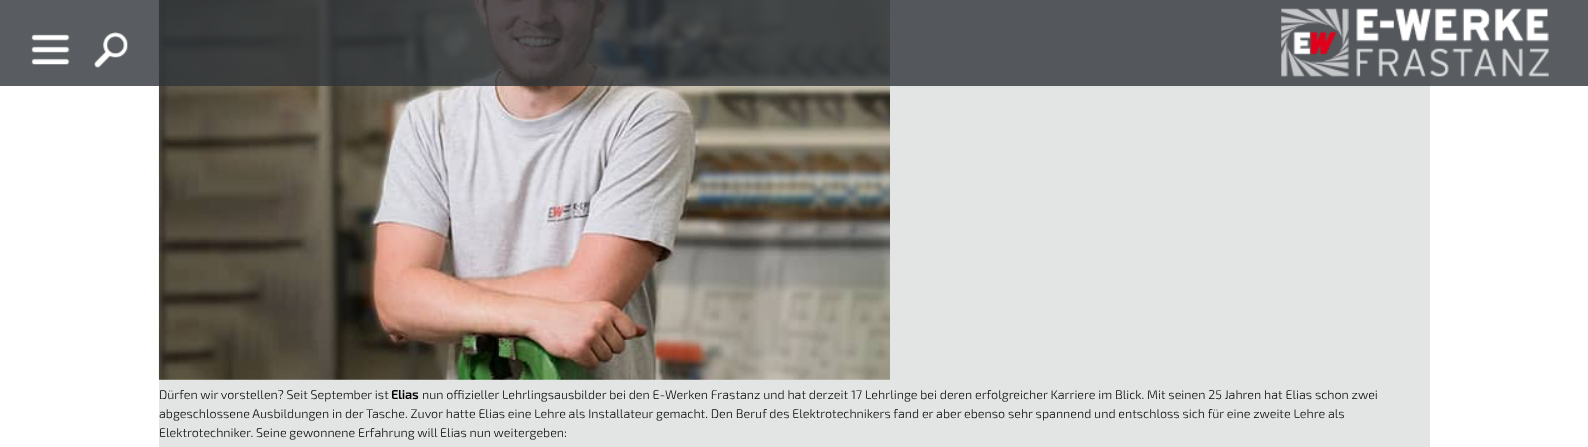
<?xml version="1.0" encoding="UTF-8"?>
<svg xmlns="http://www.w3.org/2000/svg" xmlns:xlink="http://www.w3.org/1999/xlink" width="1588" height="447">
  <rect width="100%" height="100%" fill="#ffffff" />
  <rect x="159" width="1271" height="447" fill="#e3e4e4" />
  <image x="158" y="0" width="732" height="380" xlink:href="image4.png" />
  <rect width="1588" height="86" fill="#2f3439" fill-opacity="0.8" />
  <image x="31" y="34" width="39" height="31" xlink:href="image1.png" />
  <image x="94" y="32" width="34" height="36" xlink:href="image2.png" />
  <image x="1281" y="8" width="268" height="70" xlink:href="image3.png" />
  <text x="159" y="399" style="font-family: 'Exo 2'; font-size: 12.5px; font-weight: 300; fill: #000000">Dürfen wir vorstellen? Seit September ist</text>
  <text x="391" y="399" style="font-family: 'Exo 2'; font-size: 12.5px; font-weight: bold; fill: #000000">Elias</text>
  <text x="422" y="399" style="font-family: 'Exo 2'; font-size: 12.5px; font-weight: 300; fill: #000000">nun offizieller Lehrlingsausbilder bei den E-Werken Frastanz und hat derzeit 17 Lehrlinge bei deren erfolgreicher Karriere im Blick. Mit seinen 25 Jahren hat Elias schon zwei</text>
  <text x="159" y="418" style="font-family: 'Exo 2'; font-size: 12.5px; font-weight: 300; fill: #000000">abgeschlossene Ausbildungen in der Tasche. Zuvor hatte Elias eine Lehre als Installateur gemacht. Den Beruf des Elektrotechnikers fand er aber ebenso sehr spannend und entschloss sich für eine zweite Lehre als</text>
  <text x="159" y="437" style="font-family: 'Exo 2'; font-size: 12.5px; font-weight: 300; fill: #000000">Elektrotechniker. Seine gewonnene Erfahrung will Elias nun weitergeben:</text>
</svg>
